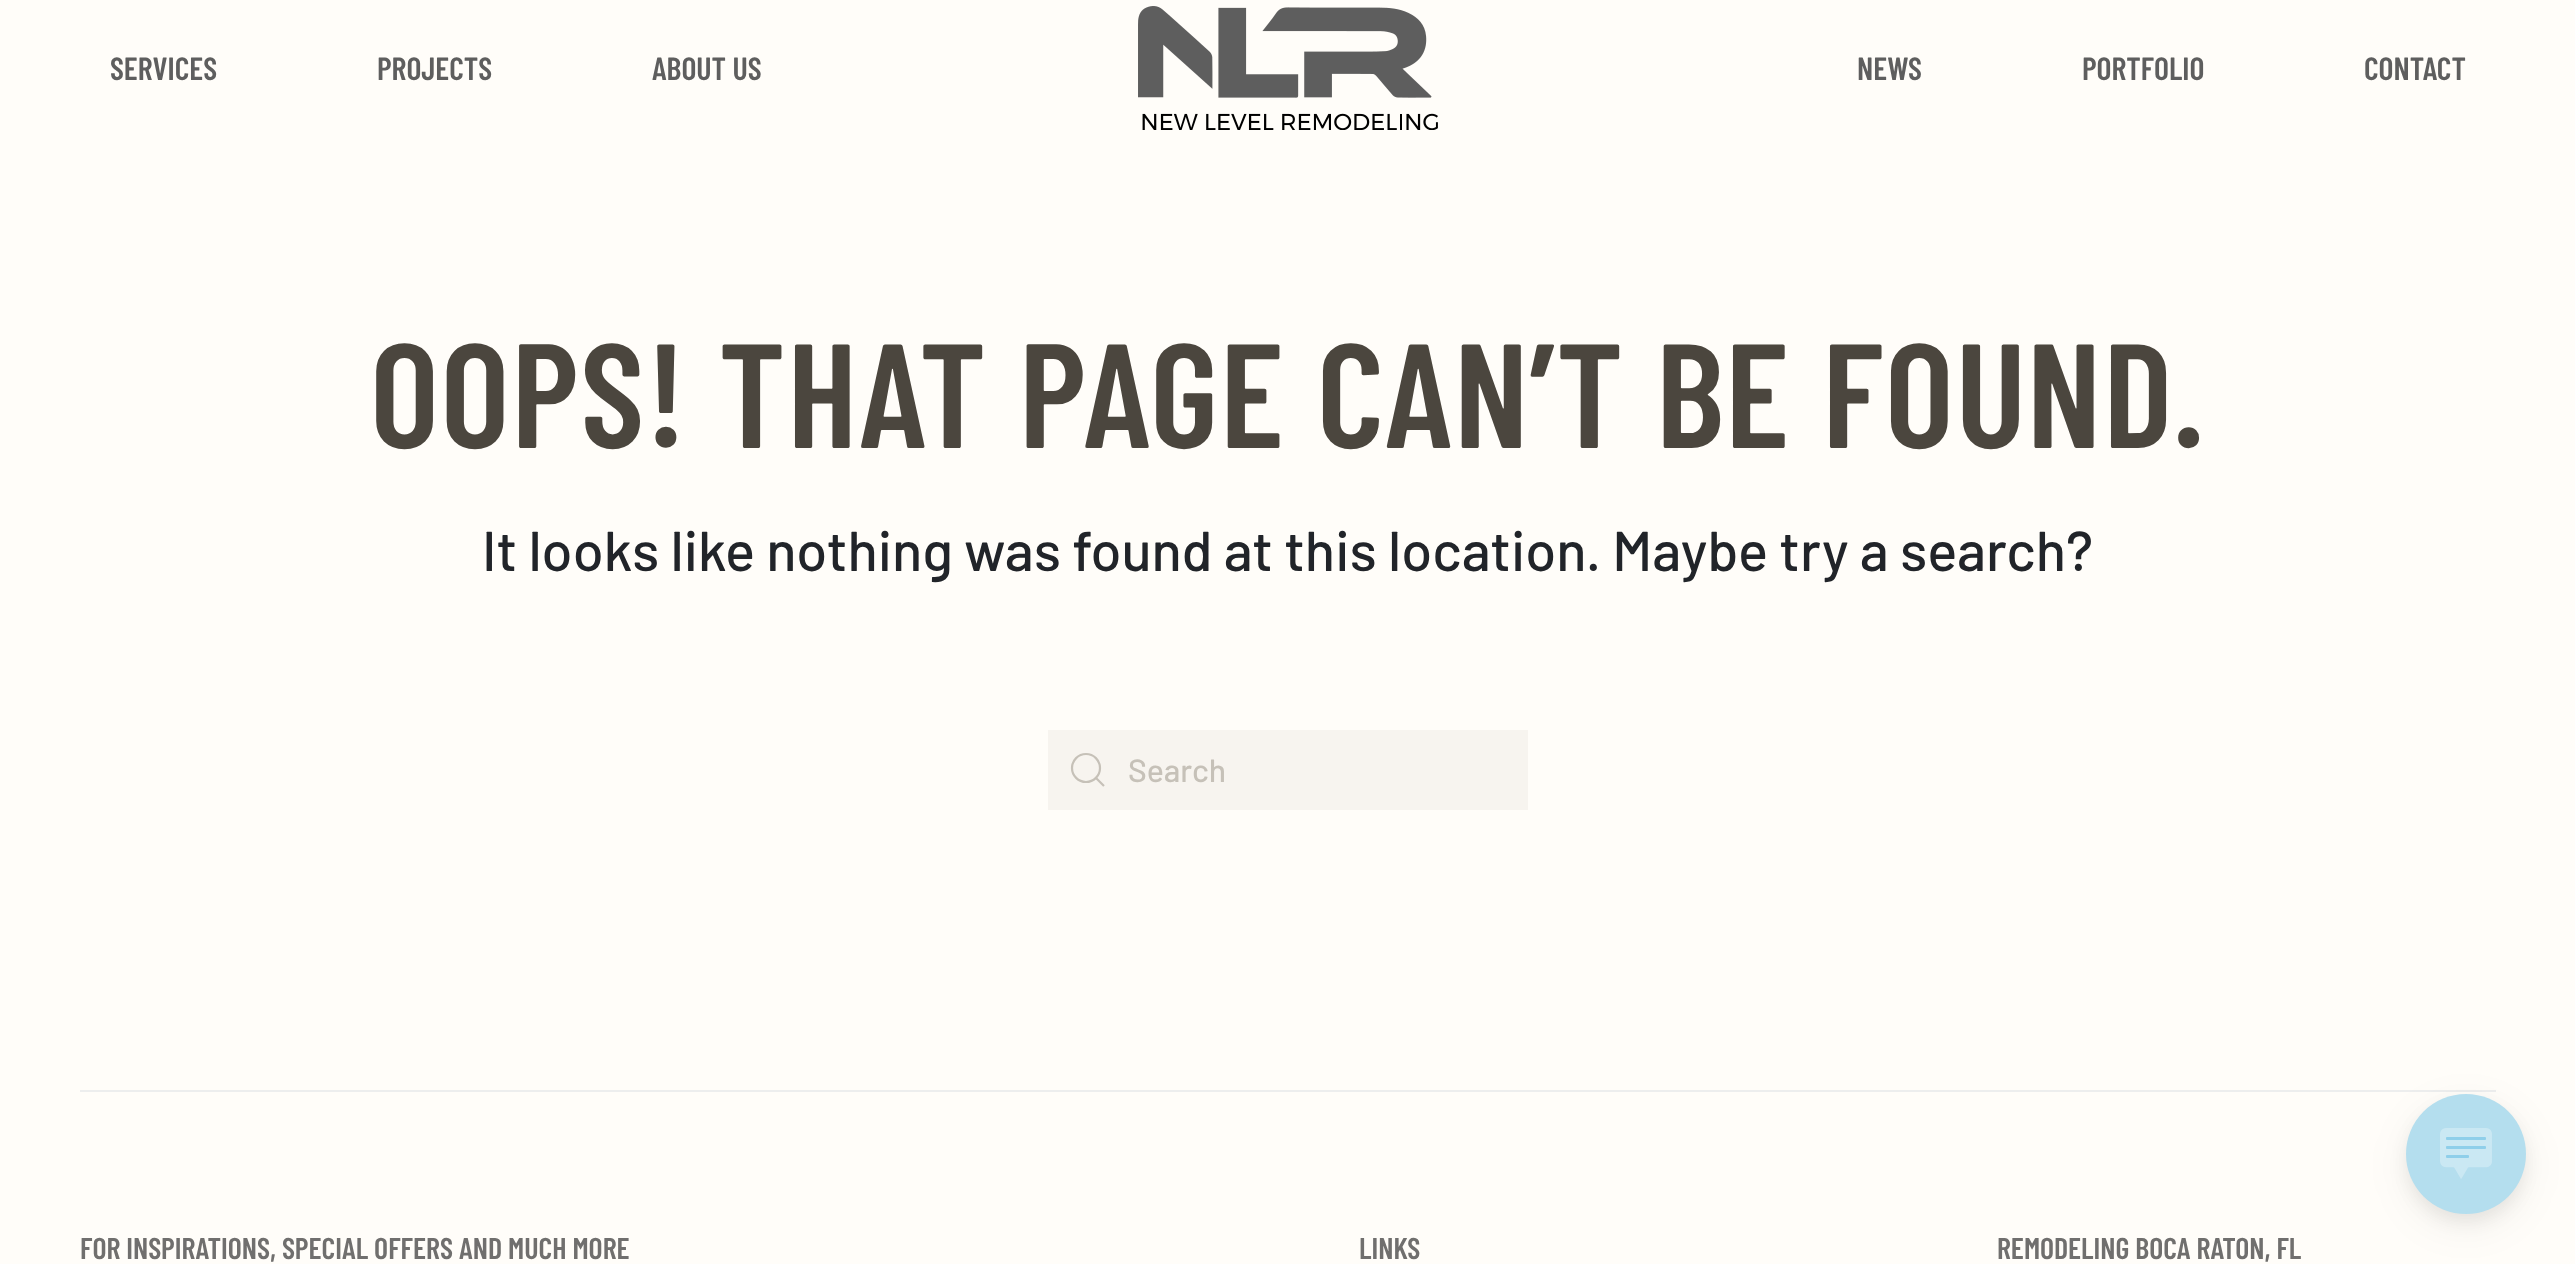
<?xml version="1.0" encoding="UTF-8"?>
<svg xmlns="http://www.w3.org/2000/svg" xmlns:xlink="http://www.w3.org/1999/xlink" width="2575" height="1264">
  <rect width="100%" height="100%" fill="#fffdf9" />
  <image x="1138" y="6" width="300" height="124" xlink:href="image1.png" />
  <rect x="1048" y="730" width="480" height="80" fill="#f7f4ef" />
  <circle cx="1086" cy="768" r="14" fill="none" stroke="#c6c1b8" stroke-width="2.2" />
  <path d="M 1096 778 l 8 8 z" fill="none" stroke="#c6c1b8" stroke-width="2.2" />
  <rect x="80" y="1090" width="2416" height="2" fill="#edeeee" />
  <rect x="2406" y="1106" width="120" height="120" rx="60" fill="#000000" fill-opacity="0.06" filter="blur(20px)" />
  <rect x="2406" y="1102" width="120" height="120" rx="60" fill="#000000" fill-opacity="0.06" filter="blur(8px)" />
  <circle cx="2466" cy="1154" r="60" fill="#b4deee" />
  <image x="2440" y="1128" width="52" height="51" xlink:href="image2.png" />
  <text x="110" y="80" style="font-family: Barlow Condensed; font-size: 32px; font-weight: 600; fill: #5e5e5e">SERVICES</text>
  <text x="377" y="80" style="font-family: Barlow Condensed; font-size: 32px; font-weight: 600; fill: #5e5e5e">PROJECTS</text>
  <text x="652" y="80" style="font-family: Barlow Condensed; font-size: 32px; font-weight: 600; fill: #5e5e5e">ABOUT US</text>
  <text x="1857" y="80" style="font-family: Barlow Condensed; font-size: 32px; font-weight: 600; fill: #5e5e5e">NEWS</text>
  <text x="2082" y="80" style="font-family: Barlow Condensed; font-size: 32px; font-weight: 600; fill: #5e5e5e">PORTFOLIO</text>
  <text x="2364" y="80" style="font-family: Barlow Condensed; font-size: 32px; font-weight: 600; fill: #5e5e5e">CONTACT</text>
  <text x="370" y="448" style="font-family: Barlow Condensed; font-size: 148px; font-weight: 600; letter-spacing: 1.5px; fill: #4b463e">OOPS! THAT PAGE CAN’T BE FOUND.</text>
  <text x="482" y="571" style="font-family: Barlow; font-size: 56px; font-weight: 500; fill: #212429">It looks like nothing was found at this location. Maybe try a search?</text>
  <text x="1128" y="782" style="font-family: Barlow; font-size: 32px; font-weight: 500; fill: #c6c1b8">Search</text>
  <text x="80" y="1259" style="font-family: Barlow Condensed; font-size: 30px; font-weight: 600; fill: #706f6e">FOR INSPIRATIONS, SPECIAL OFFERS AND MUCH MORE</text>
  <text x="1359" y="1259" style="font-family: Barlow Condensed; font-size: 30px; font-weight: 600; fill: #706f6e">LINKS</text>
  <text x="1997" y="1259" style="font-family: Barlow Condensed; font-size: 30px; font-weight: 600; fill: #706f6e">REMODELING BOCA RATON, FL</text>
</svg>
